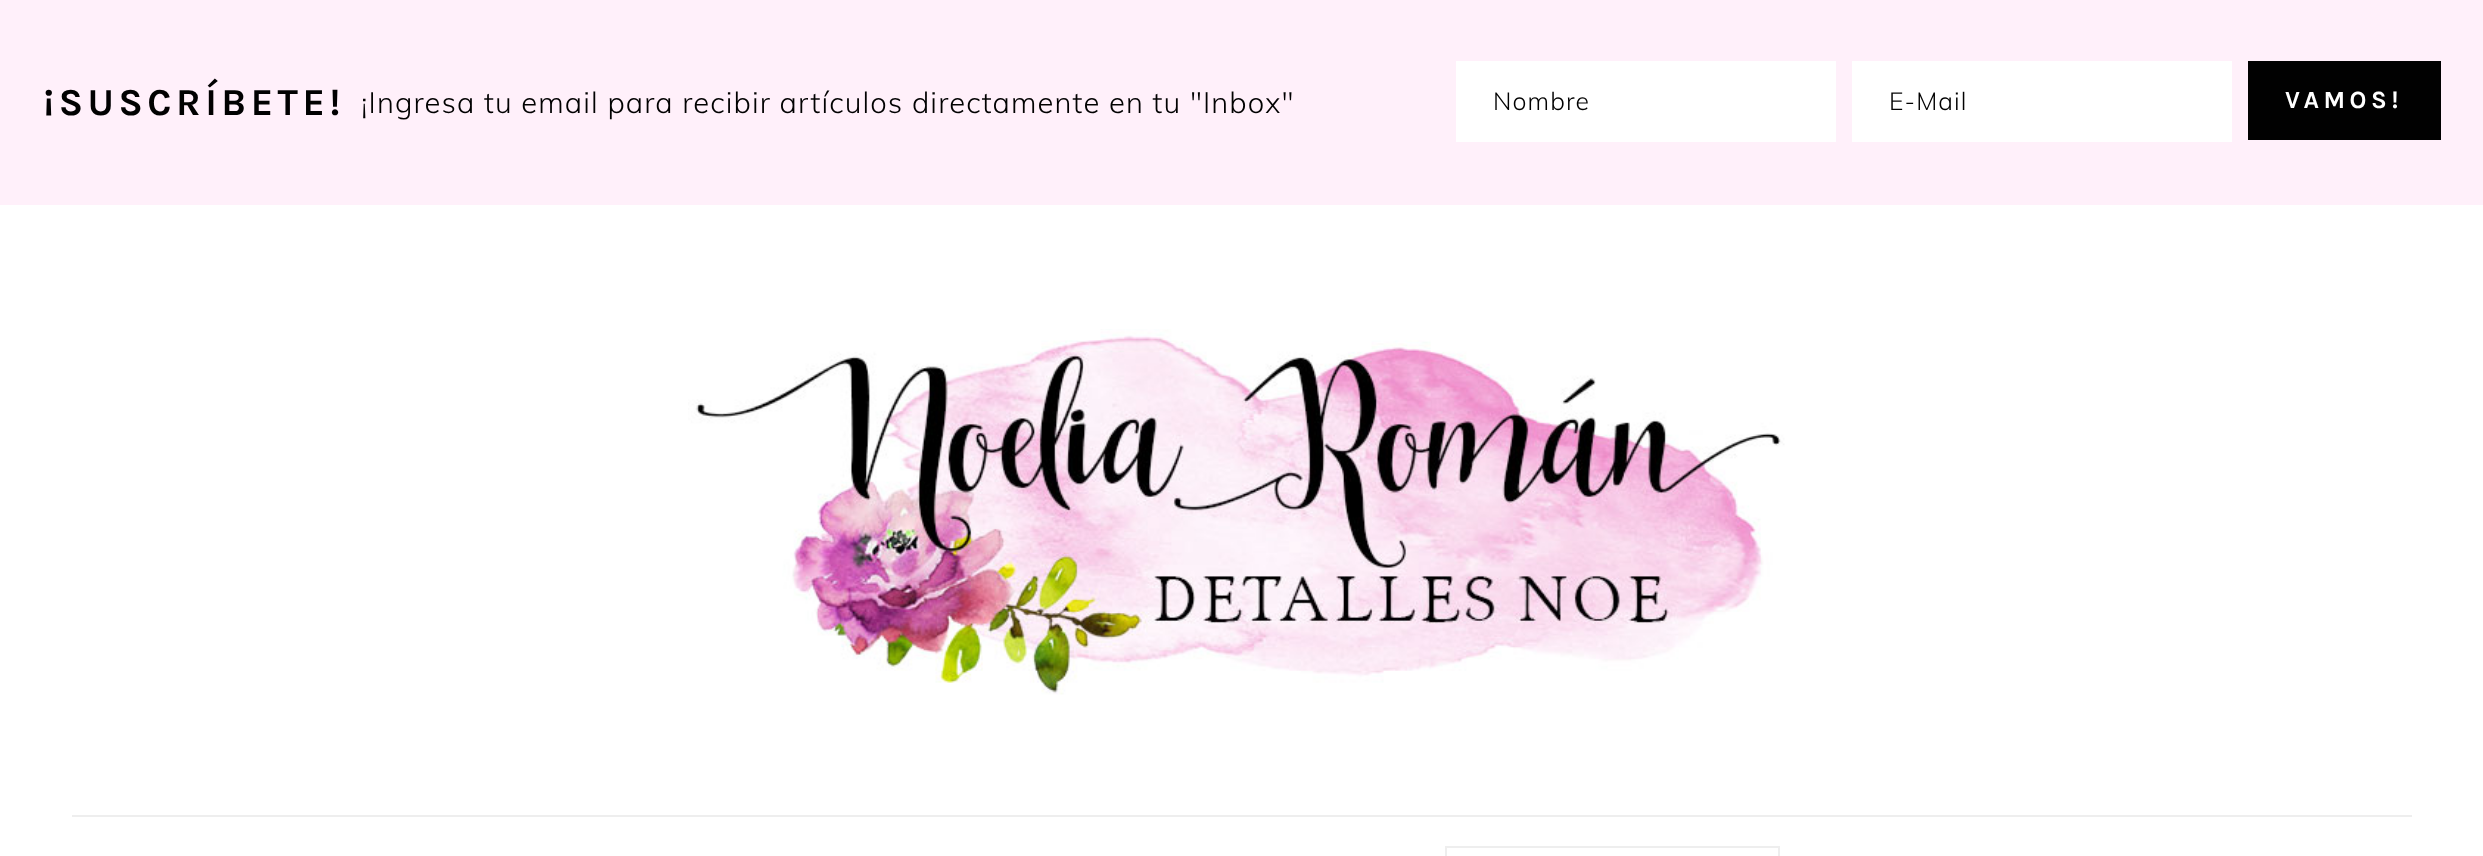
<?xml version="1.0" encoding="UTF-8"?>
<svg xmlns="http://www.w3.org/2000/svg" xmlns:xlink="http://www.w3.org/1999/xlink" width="2483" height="856">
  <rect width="100%" height="100%" fill="#ffffff" />
  <rect width="2483" height="205" fill="#fff0fa" />
  <rect x="1456" y="61" width="380" height="81" fill="#ffffff" />
  <rect x="1852" y="61" width="380" height="81" fill="#ffffff" />
  <rect x="2248" y="61" width="193" height="79" fill="#010101" />
  <image x="688" y="329" width="1097" height="366" xlink:href="image1.png" />
  <rect x="72" y="815" width="2340" height="2" fill="#eeeeee" />
  <rect x="1446" y="847" width="333" height="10" fill="none" stroke="#eeeeee" stroke-width="2" />
  <text x="43" y="115" style="font-family: Karla; font-size: 38.25px; font-weight: bold; letter-spacing: 4.5px; fill: #010101">¡SUSCRÍBETE!</text>
  <text x="361" y="113" style="font-family: Muli; font-size: 29.25px; font-weight: 300; letter-spacing: 1.12px; fill: #010101">¡Ingresa tu email para recibir artículos directamente en tu "Inbox"</text>
  <text x="1493" y="110" style="font-family: Muli; font-size: 24.75px; font-weight: 300; letter-spacing: 1.12px; fill: #010101">Nombre</text>
  <text x="1889" y="110" style="font-family: Muli; font-size: 24.75px; font-weight: 300; letter-spacing: 1.12px; fill: #010101">E-Mail</text>
  <text x="2285" y="108" style="font-family: Karla; font-size: 24.75px; font-weight: bold; letter-spacing: 4.5px; fill: #ffffff">VAMOS!</text>
</svg>
